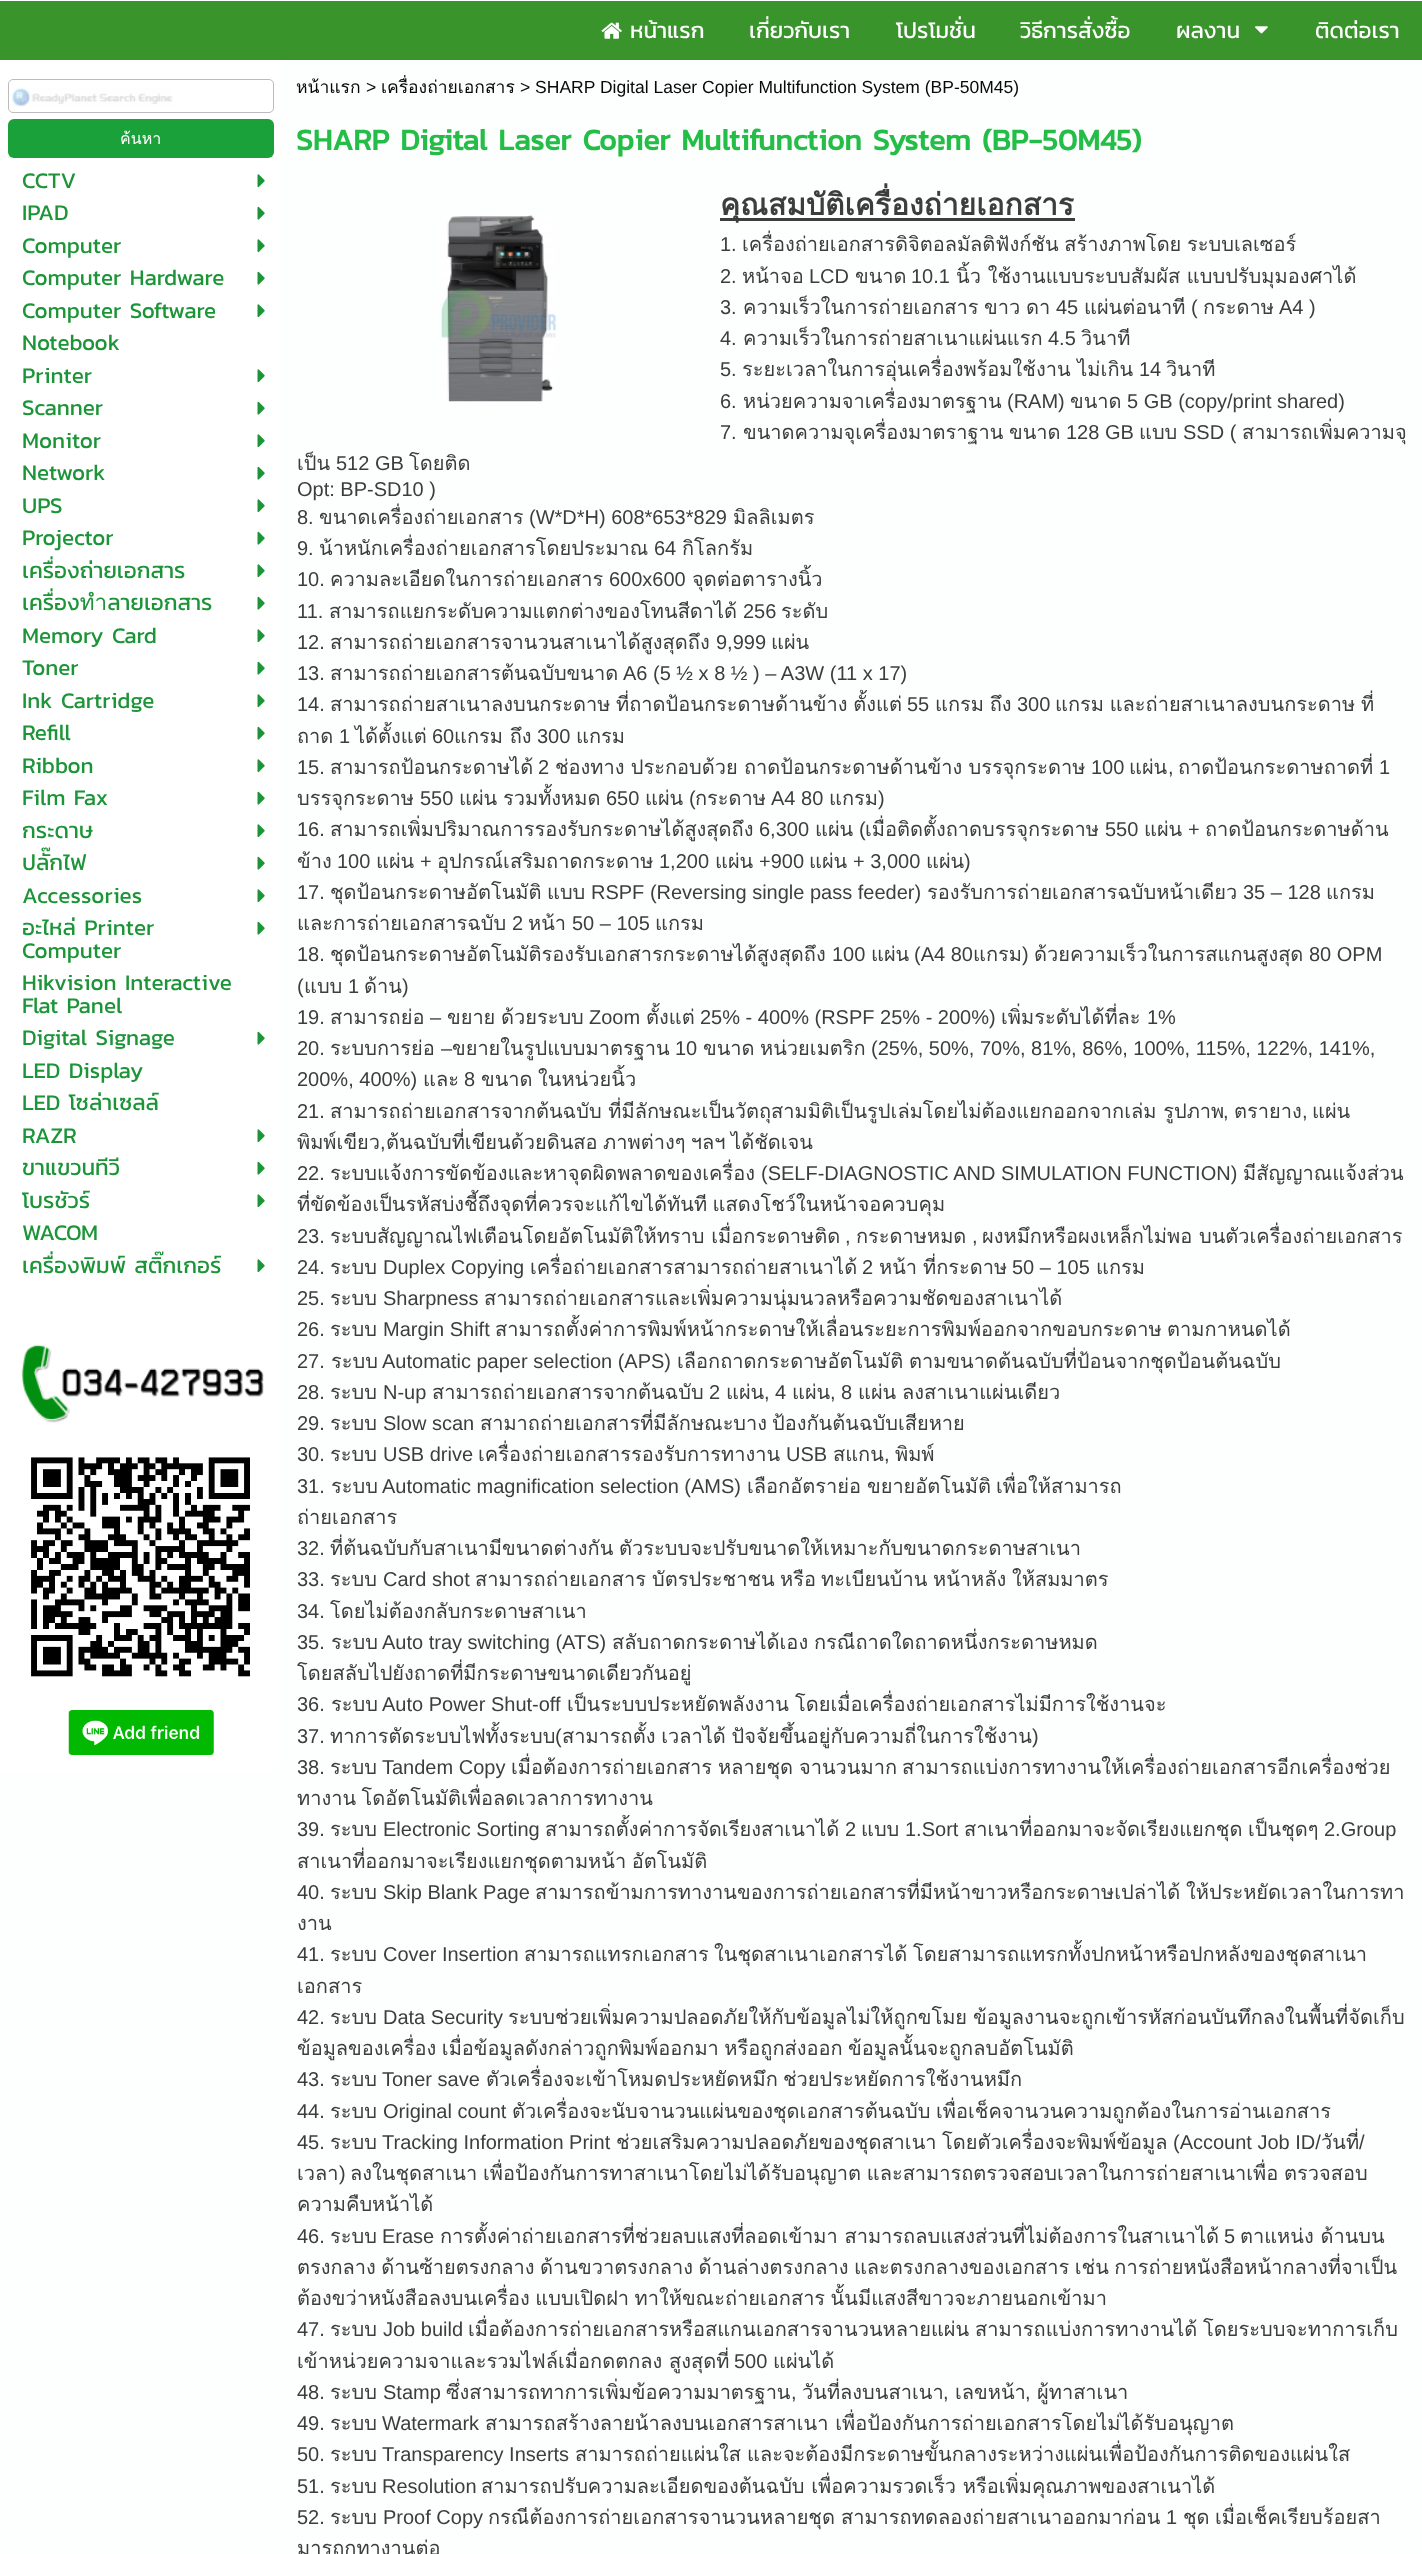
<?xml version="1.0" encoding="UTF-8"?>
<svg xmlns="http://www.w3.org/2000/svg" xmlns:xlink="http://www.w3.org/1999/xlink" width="1422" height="2554">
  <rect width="100%" height="100%" fill="#fcfffd" />
  <rect y="1" width="1422" height="59" fill="#3a942c" />
  <image x="601" y="22" width="21" height="17" xlink:href="image1.png" />
  <image x="1255" y="26" width="13" height="8" xlink:href="image2.png" />
  <path d="M 0 60 h 281 v 1698 c 0 7 -6 13 -13 13 h -268 z" fill="#ffffff" />
  <image x="12" y="88" width="161" height="19" xlink:href="image3.png" />
  <rect x="8.5" y="79.5" width="265" height="33" rx="4.5" fill="none" stroke="#bbbbbb" />
  <rect x="8" y="119" width="266" height="39" rx="6" fill="#1aa139" />
  <image x="257" y="174" width="8" height="14" xlink:href="image4.png" />
  <image x="257" y="206" width="8" height="14" xlink:href="image5.png" />
  <image x="257" y="239" width="8" height="14" xlink:href="image4.png" />
  <image x="257" y="271" width="8" height="14" xlink:href="image5.png" />
  <image x="257" y="304" width="8" height="14" xlink:href="image4.png" />
  <image x="257" y="369" width="8" height="14" xlink:href="image4.png" />
  <image x="257" y="401" width="8" height="14" xlink:href="image5.png" />
  <image x="257" y="434" width="8" height="14" xlink:href="image4.png" />
  <image x="257" y="466" width="8" height="14" xlink:href="image5.png" />
  <image x="257" y="499" width="8" height="14" xlink:href="image4.png" />
  <image x="257" y="531" width="8" height="14" xlink:href="image5.png" />
  <image x="257" y="564" width="8" height="14" xlink:href="image4.png" />
  <image x="257" y="596" width="8" height="14" xlink:href="image5.png" />
  <image x="257" y="629" width="8" height="14" xlink:href="image4.png" />
  <image x="257" y="661" width="8" height="14" xlink:href="image5.png" />
  <image x="257" y="694" width="8" height="14" xlink:href="image4.png" />
  <image x="257" y="726" width="8" height="14" xlink:href="image5.png" />
  <image x="257" y="759" width="8" height="14" xlink:href="image4.png" />
  <image x="257" y="791" width="8" height="14" xlink:href="image5.png" />
  <image x="257" y="824" width="8" height="14" xlink:href="image4.png" />
  <image x="257" y="856" width="8" height="14" xlink:href="image5.png" />
  <image x="257" y="889" width="8" height="14" xlink:href="image4.png" />
  <image x="257" y="921" width="8" height="14" xlink:href="image5.png" />
  <image x="257" y="1031" width="8" height="14" xlink:href="image5.png" />
  <image x="257" y="1129" width="8" height="14" xlink:href="image4.png" />
  <image x="257" y="1161" width="8" height="14" xlink:href="image5.png" />
  <image x="257" y="1194" width="8" height="14" xlink:href="image4.png" />
  <image x="257" y="1259" width="8" height="14" xlink:href="image4.png" />
  <image x="21" y="1344" width="243" height="79" xlink:href="image6.png" />
  <image x="31" y="1457" width="219" height="220" xlink:href="image7.png" />
  <image x="68" y="1710" width="146" height="45" xlink:href="image8.png" />
  <rect x="720" y="218" width="355" height="3" fill="#3d3d3d" />
  <image x="441" y="215" width="115" height="187" xlink:href="image9.png" />
  <text x="630" y="38" style="font-family: Kanit; font-size: 22.5px; fill: #ffffff">หน้าแรก</text>
  <text x="749" y="38" style="font-family: Kanit; font-size: 22.5px; fill: #ffffff">เกี่ยวกับเรา</text>
  <text x="896" y="38" style="font-family: Kanit; font-size: 22.5px; fill: #ffffff">โปรโมชั่น</text>
  <text x="1020" y="38" style="font-family: Kanit; font-size: 22.5px; fill: #ffffff">วิธีการสั่งซื้อ</text>
  <text x="1176" y="38" style="font-family: Kanit; font-size: 22.5px; fill: #ffffff">ผลงาน</text>
  <text x="1315" y="38" style="font-family: Kanit; font-size: 22.5px; fill: #ffffff">ติดต่อเรา</text>
  <text x="296" y="93" style="font-family: Loma; font-size: 17.5px; fill: #080808">หน้าแรก</text>
  <text x="366" y="93" style="font-family: Liberation Sans; font-size: 17.5px; fill: #080808">&gt;</text>
  <text x="381" y="93" style="font-family: Loma; font-size: 17.5px; fill: #080808">เครื่องถ่ายเอกสาร</text>
  <text x="520" y="93" style="font-family: Liberation Sans; font-size: 17.5px; fill: #080808">&gt; SHARP Digital Laser Copier Multifunction System (BP-50M45)</text>
  <text x="120" y="144" style="font-family: Loma; font-size: 16px; fill: #ffffff">ค้นหา</text>
  <text x="22" y="188" style="font-family: Kanit; font-size: 22.5px; fill: #1c9438">CCTV</text>
  <text x="22" y="220" style="font-family: Kanit; font-size: 22.5px; fill: #1c9438">IPAD</text>
  <text x="22" y="253" style="font-family: Kanit; font-size: 22.5px; fill: #1c9438">Computer</text>
  <text x="22" y="285" style="font-family: Kanit; font-size: 22.5px; fill: #1c9438">Computer Hardware</text>
  <text x="22" y="318" style="font-family: Kanit; font-size: 22.5px; fill: #1c9438">Computer Software</text>
  <text x="22" y="350" style="font-family: Kanit; font-size: 22.5px; fill: #1c9438">Notebook</text>
  <text x="22" y="383" style="font-family: Kanit; font-size: 22.5px; fill: #1c9438">Printer</text>
  <text x="22" y="415" style="font-family: Kanit; font-size: 22.5px; fill: #1c9438">Scanner</text>
  <text x="22" y="448" style="font-family: Kanit; font-size: 22.5px; fill: #1c9438">Monitor</text>
  <text x="22" y="480" style="font-family: Kanit; font-size: 22.5px; fill: #1c9438">Network</text>
  <text x="22" y="513" style="font-family: Kanit; font-size: 22.5px; fill: #1c9438">UPS</text>
  <text x="22" y="545" style="font-family: Kanit; font-size: 22.5px; fill: #1c9438">Projector</text>
  <text x="22" y="578" style="font-family: Kanit; font-size: 22.5px; fill: #1c9438">เครื่องถ่ายเอกสาร</text>
  <text x="22" y="610" style="font-family: Kanit; font-size: 22.5px; fill: #1c9438">เครื่องทำลายเอกสาร</text>
  <text x="22" y="643" style="font-family: Kanit; font-size: 22.5px; fill: #1c9438">Memory Card</text>
  <text x="22" y="675" style="font-family: Kanit; font-size: 22.5px; fill: #1c9438">Toner</text>
  <text x="22" y="708" style="font-family: Kanit; font-size: 22.5px; fill: #1c9438">Ink Cartridge</text>
  <text x="22" y="740" style="font-family: Kanit; font-size: 22.5px; fill: #1c9438">Refill</text>
  <text x="22" y="773" style="font-family: Kanit; font-size: 22.5px; fill: #1c9438">Ribbon</text>
  <text x="22" y="805" style="font-family: Kanit; font-size: 22.5px; fill: #1c9438">Film Fax</text>
  <text x="22" y="838" style="font-family: Kanit; font-size: 22.5px; fill: #1c9438">กระดาษ</text>
  <text x="22" y="870" style="font-family: Kanit; font-size: 22.5px; fill: #1c9438">ปลั๊กไฟ</text>
  <text x="22" y="903" style="font-family: Kanit; font-size: 22.5px; fill: #1c9438">Accessories</text>
  <text x="22" y="935" style="font-family: Kanit; font-size: 22.5px; fill: #1c9438">อะไหล่ Printer</text>
  <text x="22" y="958" style="font-family: Kanit; font-size: 22.5px; fill: #1c9438">Computer</text>
  <text x="22" y="990" style="font-family: Kanit; font-size: 22.5px; fill: #1c9438">Hikvision Interactive</text>
  <text x="22" y="1013" style="font-family: Kanit; font-size: 22.5px; fill: #1c9438">Flat Panel</text>
  <text x="22" y="1045" style="font-family: Kanit; font-size: 22.5px; fill: #1c9438">Digital Signage</text>
  <text x="22" y="1078" style="font-family: Kanit; font-size: 22.5px; fill: #1c9438">LED Display</text>
  <text x="22" y="1110" style="font-family: Kanit; font-size: 22.5px; fill: #1c9438">LED โซล่าเซลล์</text>
  <text x="22" y="1143" style="font-family: Kanit; font-size: 22.5px; fill: #1c9438">RAZR</text>
  <text x="22" y="1175" style="font-family: Kanit; font-size: 22.5px; fill: #1c9438">ขาแขวนทีวี</text>
  <text x="22" y="1208" style="font-family: Kanit; font-size: 22.5px; fill: #1c9438">โบรชัวร์</text>
  <text x="22" y="1240" style="font-family: Kanit; font-size: 22.5px; fill: #1c9438">WACOM</text>
  <text x="22" y="1273" style="font-family: Kanit; font-size: 22.5px; fill: #1c9438">เครื่องพิมพ์ สติ๊กเกอร์</text>
  <text x="296" y="150" style="font-family: Kanit; font-size: 30px; font-weight: bold; fill: #24bd47">SHARP Digital Laser Copier Multifunction System (BP-50M45)</text>
  <text x="720" y="215" style="font-family: Loma; font-size: 30px; font-weight: bold; fill: #3d3d3d">คุณสมบัติเครื่องถ่ายเอกสาร</text>
  <text x="720" y="251" style="font-family: Liberation Sans; font-size: 20px; fill: #3d3d3d">1.</text>
  <text x="742" y="251" word-spacing="-1" style="font-family: Loma; font-size: 20px; fill: #3d3d3d">เครื่องถ่ายเอกสารดิจิตอลมัลติฟังก์ชัน สร้างภาพโดย ระบบเลเซอร์</text>
  <text x="720" y="283" style="font-family: Liberation Sans; font-size: 20px; fill: #3d3d3d">2.</text>
  <text x="742" y="283" style="font-family: Loma; font-size: 20px; fill: #3d3d3d">หน้าจอ</text>
  <text x="809" y="283" style="font-family: Liberation Sans; font-size: 20px; fill: #3d3d3d">LCD</text>
  <text x="855" y="283" style="font-family: Loma; font-size: 20px; fill: #3d3d3d">ขนาด</text>
  <text x="911" y="283" style="font-family: Liberation Sans; font-size: 20px; fill: #3d3d3d">10.1</text>
  <text x="956" y="283" style="font-family: Loma; font-size: 20px; fill: #3d3d3d">นิ้ว ใช้งานแบบระบบสัมผัส แบบปรับมุมองศาได้</text>
  <text x="720" y="314" style="font-family: Liberation Sans; font-size: 20px; fill: #3d3d3d">3.</text>
  <text x="743" y="314" style="font-family: Loma; font-size: 20px; fill: #3d3d3d">ความเร็วในการถ่ายเอกสาร</text>
  <text x="984" y="314" style="font-family: Loma; font-size: 20px; fill: #3d3d3d">ขาว</text>
  <text x="1026" y="314" style="font-family: Loma; font-size: 20px; fill: #3d3d3d">ดา</text>
  <text x="1056" y="314" style="font-family: Liberation Sans; font-size: 20px; fill: #3d3d3d">45</text>
  <text x="1084" y="314" style="font-family: Loma; font-size: 20px; fill: #3d3d3d">แผ่นต่อนาที</text>
  <text x="1191" y="314" style="font-family: Liberation Sans; font-size: 20px; fill: #3d3d3d">(</text>
  <text x="1203" y="314" style="font-family: Loma; font-size: 20px; fill: #3d3d3d">กระดาษ</text>
  <text x="1279" y="314" style="font-family: Liberation Sans; font-size: 20px; fill: #3d3d3d">A4 )</text>
  <text x="720" y="345" style="font-family: Liberation Sans; font-size: 20px; fill: #3d3d3d">4.</text>
  <text x="743" y="345" style="font-family: Loma; font-size: 20px; fill: #3d3d3d">ความเร็วในการถ่ายสาเนาแผ่นแรก</text>
  <text x="1048" y="345" style="font-family: Liberation Sans; font-size: 20px; fill: #3d3d3d">4.5</text>
  <text x="1081" y="345" style="font-family: Loma; font-size: 20px; fill: #3d3d3d">วินาที</text>
  <text x="720" y="376" style="font-family: Liberation Sans; font-size: 20px; fill: #3d3d3d">5.</text>
  <text x="742" y="376" style="font-family: Loma; font-size: 20px; fill: #3d3d3d">ระยะเวลาในการอุ่นเครื่องพร้อมใช้งาน ไม่เกิน</text>
  <text x="1139" y="376" style="font-family: Liberation Sans; font-size: 20px; fill: #3d3d3d">14</text>
  <text x="1166" y="376" style="font-family: Loma; font-size: 20px; fill: #3d3d3d">วินาที</text>
  <text x="720" y="408" style="font-family: Liberation Sans; font-size: 20px; fill: #3d3d3d">6.</text>
  <text x="743" y="408" style="font-family: Loma; font-size: 20px; fill: #3d3d3d">หน่วยความจาเครื่องมาตรฐาน</text>
  <text x="1007" y="408" style="font-family: Liberation Sans; font-size: 20px; fill: #3d3d3d">(RAM)</text>
  <text x="1070" y="408" style="font-family: Loma; font-size: 20px; fill: #3d3d3d">ขนาด</text>
  <text x="1127" y="408" style="font-family: Liberation Sans; font-size: 20px; fill: #3d3d3d">5 GB (copy/print shared)</text>
  <text x="720" y="439" style="font-family: Liberation Sans; font-size: 20px; fill: #3d3d3d">7.</text>
  <text x="743" y="439" style="font-family: Loma; font-size: 20px; fill: #3d3d3d">ขนาดความจุเครื่องมาตราฐาน</text>
  <text x="1009" y="439" style="font-family: Loma; font-size: 20px; fill: #3d3d3d">ขนาด</text>
  <text x="1066" y="439" style="font-family: Liberation Sans; font-size: 20px; fill: #3d3d3d">128 GB</text>
  <text x="1139" y="439" style="font-family: Loma; font-size: 20px; fill: #3d3d3d">แบบ</text>
  <text x="1183" y="439" style="font-family: Liberation Sans; font-size: 20px; fill: #3d3d3d">SSD (</text>
  <text x="1242" y="439" style="font-family: Loma; font-size: 20px; fill: #3d3d3d">สามารถเพิ่มความจุ</text>
  <text x="297" y="470" style="font-family: Loma; font-size: 20px; fill: #3d3d3d">เป็น</text>
  <text x="336" y="470" style="font-family: Liberation Sans; font-size: 20px; fill: #3d3d3d">512 GB</text>
  <text x="409" y="470" style="font-family: Loma; font-size: 20px; fill: #3d3d3d">โดยติด</text>
  <text x="297" y="496" style="font-family: Liberation Sans; font-size: 20px; fill: #3d3d3d">Opt: BP-SD10 )</text>
  <text x="297" y="524" style="font-family: Liberation Sans; font-size: 20px; fill: #3d3d3d">8.</text>
  <text x="319" y="524" style="font-family: Loma; font-size: 20px; fill: #3d3d3d">ขนาดเครื่องถ่ายเอกสาร</text>
  <text x="529" y="524" style="font-family: Liberation Sans; font-size: 20px; fill: #3d3d3d">(W*D*H) 608*653*829</text>
  <text x="733" y="524" style="font-family: Loma; font-size: 20px; fill: #3d3d3d">มิลลิเมตร</text>
  <text x="297" y="555" style="font-family: Liberation Sans; font-size: 20px; fill: #3d3d3d">9.</text>
  <text x="319" y="555" style="font-family: Loma; font-size: 20px; fill: #3d3d3d">น้าหนักเครื่องถ่ายเอกสารโดยประมาณ</text>
  <text x="654" y="555" style="font-family: Liberation Sans; font-size: 20px; fill: #3d3d3d">64</text>
  <text x="682" y="555" style="font-family: Loma; font-size: 20px; fill: #3d3d3d">กิโลกรัม</text>
  <text x="297" y="586" style="font-family: Liberation Sans; font-size: 20px; fill: #3d3d3d">10.</text>
  <text x="330" y="586" style="font-family: Loma; font-size: 20px; fill: #3d3d3d">ความละเอียดในการถ่ายเอกสาร</text>
  <text x="609" y="586" style="font-family: Liberation Sans; font-size: 20px; fill: #3d3d3d">600x600</text>
  <text x="692" y="586" style="font-family: Loma; font-size: 20px; fill: #3d3d3d">จุดต่อตารางนิ้ว</text>
  <text x="297" y="618" style="font-family: Liberation Sans; font-size: 20px; fill: #3d3d3d">11.</text>
  <text x="329" y="618" style="font-family: Loma; font-size: 20px; fill: #3d3d3d">สามารถแยกระดับความแตกต่างของโทนสีดาได้</text>
  <text x="743" y="618" style="font-family: Liberation Sans; font-size: 20px; fill: #3d3d3d">256</text>
  <text x="781" y="618" style="font-family: Loma; font-size: 20px; fill: #3d3d3d">ระดับ</text>
  <text x="297" y="649" style="font-family: Liberation Sans; font-size: 20px; fill: #3d3d3d">12.</text>
  <text x="330" y="649" style="font-family: Loma; font-size: 20px; fill: #3d3d3d">สามารถถ่ายเอกสารจานวนสาเนาได้สูงสุดถึง</text>
  <text x="716" y="649" style="font-family: Liberation Sans; font-size: 20px; fill: #3d3d3d">9,999</text>
  <text x="771" y="649" style="font-family: Loma; font-size: 20px; fill: #3d3d3d">แผ่น</text>
  <text x="297" y="680" style="font-family: Liberation Sans; font-size: 20px; fill: #3d3d3d">13.</text>
  <text x="330" y="680" style="font-family: Loma; font-size: 20px; fill: #3d3d3d">สามารถถ่ายเอกสารต้นฉบับขนาด</text>
  <text x="623" y="680" style="font-family: Liberation Sans; font-size: 20px; fill: #3d3d3d">A6 (5 ½ x 8 ½ ) – A3W (11 x 17)</text>
  <text x="297" y="711" style="font-family: Liberation Sans; font-size: 20px; fill: #3d3d3d">14.</text>
  <text x="330" y="711" word-spacing="-1" style="font-family: Loma; font-size: 20px; fill: #3d3d3d">สามารถถ่ายสาเนาลงบนกระดาษ ที่ถาดป้อนกระดาษด้านข้าง ตั้งแต่</text>
  <text x="907" y="711" style="font-family: Liberation Sans; font-size: 20px; fill: #3d3d3d">55</text>
  <text x="935" y="711" word-spacing="-1" style="font-family: Loma; font-size: 20px; fill: #3d3d3d">แกรม ถึง</text>
  <text x="1017" y="711" style="font-family: Liberation Sans; font-size: 20px; fill: #3d3d3d">300</text>
  <text x="1055" y="711" word-spacing="-1" style="font-family: Loma; font-size: 20px; fill: #3d3d3d">แกรม และถ่ายสาเนาลงบนกระดาษ ที่</text>
  <text x="297" y="743" style="font-family: Loma; font-size: 20px; fill: #3d3d3d">ถาด</text>
  <text x="339" y="743" style="font-family: Liberation Sans; font-size: 20px; fill: #3d3d3d">1</text>
  <text x="355" y="743" style="font-family: Loma; font-size: 20px; fill: #3d3d3d">ได้ตั้งแต่</text>
  <text x="432" y="743" style="font-family: Liberation Sans; font-size: 20px; fill: #3d3d3d">60</text>
  <text x="454" y="743" style="font-family: Loma; font-size: 20px; fill: #3d3d3d">แกรม ถึง</text>
  <text x="537" y="743" style="font-family: Liberation Sans; font-size: 20px; fill: #3d3d3d">300</text>
  <text x="576" y="743" style="font-family: Loma; font-size: 20px; fill: #3d3d3d">แกรม</text>
  <text x="297" y="774" style="font-family: Liberation Sans; font-size: 20px; fill: #3d3d3d">15.</text>
  <text x="330" y="774" style="font-family: Loma; font-size: 20px; fill: #3d3d3d">สามารถป้อนกระดาษได้</text>
  <text x="538" y="774" style="font-family: Liberation Sans; font-size: 20px; fill: #3d3d3d">2</text>
  <text x="555" y="774" word-spacing="-0.5" style="font-family: Loma; font-size: 20px; fill: #3d3d3d">ช่องทาง ประกอบด้วย ถาดป้อนกระดาษด้านข้าง บรรจุกระดาษ</text>
  <text x="1091" y="774" style="font-family: Liberation Sans; font-size: 20px; fill: #3d3d3d">100</text>
  <text x="1129" y="774" style="font-family: Loma; font-size: 20px; fill: #3d3d3d">แผ่น</text>
  <text x="1168" y="774" style="font-family: Liberation Sans; font-size: 20px; fill: #3d3d3d">,</text>
  <text x="1178" y="774" style="font-family: Loma; font-size: 20px; fill: #3d3d3d">ถาดป้อนกระดาษถาดที่</text>
  <text x="1379" y="774" style="font-family: Liberation Sans; font-size: 20px; fill: #3d3d3d">1</text>
  <text x="297" y="805" style="font-family: Loma; font-size: 20px; fill: #3d3d3d">บรรจุกระดาษ</text>
  <text x="420" y="805" style="font-family: Liberation Sans; font-size: 20px; fill: #3d3d3d">550</text>
  <text x="459" y="805" style="font-family: Loma; font-size: 20px; fill: #3d3d3d">แผ่น</text>
  <text x="503" y="805" style="font-family: Loma; font-size: 20px; fill: #3d3d3d">รวมทั้งหมด</text>
  <text x="606" y="805" style="font-family: Liberation Sans; font-size: 20px; fill: #3d3d3d">650</text>
  <text x="645" y="805" style="font-family: Loma; font-size: 20px; fill: #3d3d3d">แผ่น</text>
  <text x="689" y="805" style="font-family: Liberation Sans; font-size: 20px; fill: #3d3d3d">(</text>
  <text x="695" y="805" style="font-family: Loma; font-size: 20px; fill: #3d3d3d">กระดาษ</text>
  <text x="771" y="805" style="font-family: Liberation Sans; font-size: 20px; fill: #3d3d3d">A4 80</text>
  <text x="829" y="805" style="font-family: Loma; font-size: 20px; fill: #3d3d3d">แกรม</text>
  <text x="878" y="805" style="font-family: Liberation Sans; font-size: 20px; fill: #3d3d3d">)</text>
  <text x="330" y="836" style="font-family: Loma; font-size: 20px; fill: #3d3d3d">สามารถเพิ่มปริมาณการรองรับกระดาษได้สูงสุดถึง</text>
  <text x="815" y="836" style="font-family: Loma; font-size: 20px; fill: #3d3d3d">แผ่น</text>
  <text x="1144" y="836" style="font-family: Loma; font-size: 20px; fill: #3d3d3d">แผ่น</text>
  <text x="1205" y="836" style="font-family: Loma; font-size: 20px; fill: #3d3d3d">ถาดป้อนกระดาษด้าน</text>
  <text x="297" y="836" style="font-family: Liberation Sans; font-size: 20px; fill: #3d3d3d">16.</text>
  <text x="759" y="836" style="font-family: Liberation Sans; font-size: 20px; fill: #3d3d3d">6,300</text>
  <text x="859" y="836" style="font-family: Liberation Sans; font-size: 20px; fill: #3d3d3d">(</text>
  <text x="865" y="836" style="font-family: Loma; font-size: 20px; fill: #3d3d3d">เมื่อติดตั้งถาดบรรจุกระดาษ</text>
  <text x="1105" y="836" style="font-family: Liberation Sans; font-size: 20px; fill: #3d3d3d">550</text>
  <text x="1188" y="836" style="font-family: Liberation Sans; font-size: 20px; fill: #3d3d3d">+</text>
  <text x="297" y="868" style="font-family: Loma; font-size: 20px; fill: #3d3d3d">ข้าง</text>
  <text x="337" y="868" style="font-family: Liberation Sans; font-size: 20px; fill: #3d3d3d">100</text>
  <text x="376" y="868" style="font-family: Loma; font-size: 20px; fill: #3d3d3d">แผ่น</text>
  <text x="420" y="868" style="font-family: Liberation Sans; font-size: 20px; fill: #3d3d3d">+</text>
  <text x="437" y="868" style="font-family: Loma; font-size: 20px; fill: #3d3d3d">อุปกรณ์เสริมถาดกระดาษ</text>
  <text x="659" y="868" style="font-family: Liberation Sans; font-size: 20px; fill: #3d3d3d">1,200</text>
  <text x="715" y="868" style="font-family: Loma; font-size: 20px; fill: #3d3d3d">แผ่น</text>
  <text x="759" y="868" style="font-family: Liberation Sans; font-size: 20px; fill: #3d3d3d">+900</text>
  <text x="809" y="868" style="font-family: Loma; font-size: 20px; fill: #3d3d3d">แผ่น</text>
  <text x="853" y="868" style="font-family: Liberation Sans; font-size: 20px; fill: #3d3d3d">+ 3,000</text>
  <text x="926" y="868" style="font-family: Loma; font-size: 20px; fill: #3d3d3d">แผ่น</text>
  <text x="964" y="868" style="font-family: Liberation Sans; font-size: 20px; fill: #3d3d3d">)</text>
  <text x="297" y="899" style="font-family: Liberation Sans; font-size: 20px; fill: #3d3d3d">17.</text>
  <text x="330" y="899" style="font-family: Loma; font-size: 20px; fill: #3d3d3d">ชุดป้อนกระดาษอัตโนมัติ</text>
  <text x="547" y="899" style="font-family: Loma; font-size: 20px; fill: #3d3d3d">แบบ</text>
  <text x="591" y="899" style="font-family: Liberation Sans; font-size: 20px; fill: #3d3d3d">RSPF (Reversing single pass feeder)</text>
  <text x="927" y="899" style="font-family: Loma; font-size: 20px; fill: #3d3d3d">รองรับการถ่ายเอกสารฉบับหน้าเดียว</text>
  <text x="1243" y="899" style="font-family: Liberation Sans; font-size: 20px; fill: #3d3d3d">35 – 128</text>
  <text x="1326" y="899" style="font-family: Loma; font-size: 20px; fill: #3d3d3d">แกรม</text>
  <text x="297" y="930" style="font-family: Loma; font-size: 20px; fill: #3d3d3d">และการถ่ายเอกสารฉบับ</text>
  <text x="512" y="930" style="font-family: Liberation Sans; font-size: 20px; fill: #3d3d3d">2</text>
  <text x="528" y="930" style="font-family: Loma; font-size: 20px; fill: #3d3d3d">หน้า</text>
  <text x="572" y="930" style="font-family: Liberation Sans; font-size: 20px; fill: #3d3d3d">50 – 105</text>
  <text x="655" y="930" style="font-family: Loma; font-size: 20px; fill: #3d3d3d">แกรม</text>
  <text x="297" y="961" style="font-family: Liberation Sans; font-size: 20px; fill: #3d3d3d">18.</text>
  <text x="330" y="961" style="font-family: Loma; font-size: 20px; fill: #3d3d3d">ชุดป้อนกระดาษอัตโนมัติรองรับเอกสารกระดาษได้สูงสุดถึง</text>
  <text x="832" y="961" style="font-family: Liberation Sans; font-size: 20px; fill: #3d3d3d">100</text>
  <text x="871" y="961" style="font-family: Loma; font-size: 20px; fill: #3d3d3d">แผ่น</text>
  <text x="914" y="961" style="font-family: Liberation Sans; font-size: 20px; fill: #3d3d3d">(A4 80</text>
  <text x="973" y="961" style="font-family: Loma; font-size: 20px; fill: #3d3d3d">แกรม</text>
  <text x="1022" y="961" style="font-family: Liberation Sans; font-size: 20px; fill: #3d3d3d">)</text>
  <text x="1034" y="961" style="font-family: Loma; font-size: 20px; fill: #3d3d3d">ด้วยความเร็วในการสแกนสูงสุด</text>
  <text x="1309" y="961" style="font-family: Liberation Sans; font-size: 20px; fill: #3d3d3d">80 OPM</text>
  <text x="297" y="993" style="font-family: Liberation Sans; font-size: 20px; fill: #3d3d3d">(</text>
  <text x="304" y="993" style="font-family: Loma; font-size: 20px; fill: #3d3d3d">แบบ</text>
  <text x="348" y="993" style="font-family: Liberation Sans; font-size: 20px; fill: #3d3d3d">1</text>
  <text x="364" y="993" style="font-family: Loma; font-size: 20px; fill: #3d3d3d">ด้าน</text>
  <text x="402" y="993" style="font-family: Liberation Sans; font-size: 20px; fill: #3d3d3d">)</text>
  <text x="297" y="1024" style="font-family: Liberation Sans; font-size: 20px; fill: #3d3d3d">19.</text>
  <text x="330" y="1024" style="font-family: Loma; font-size: 20px; fill: #3d3d3d">สามารถย่อ</text>
  <text x="430" y="1024" style="font-family: Liberation Sans; font-size: 20px; fill: #3d3d3d">–</text>
  <text x="447" y="1024" style="font-family: Loma; font-size: 20px; fill: #3d3d3d">ขยาย</text>
  <text x="501" y="1024" style="font-family: Loma; font-size: 20px; fill: #3d3d3d">ด้วยระบบ</text>
  <text x="589" y="1024" style="font-family: Liberation Sans; font-size: 20px; fill: #3d3d3d">Zoom</text>
  <text x="646" y="1024" style="font-family: Loma; font-size: 20px; fill: #3d3d3d">ตั้งแต่</text>
  <text x="700" y="1024" style="font-family: Liberation Sans; font-size: 20px; fill: #3d3d3d">25% - 400% (RSPF 25% - 200%)</text>
  <text x="1001" y="1024" style="font-family: Loma; font-size: 20px; fill: #3d3d3d">เพิ่มระดับได้ที่ละ</text>
  <text x="1147" y="1024" style="font-family: Liberation Sans; font-size: 20px; fill: #3d3d3d">1%</text>
  <text x="297" y="1055" style="font-family: Liberation Sans; font-size: 20px; fill: #3d3d3d">20.</text>
  <text x="330" y="1055" style="font-family: Loma; font-size: 20px; fill: #3d3d3d">ระบบการย่อ</text>
  <text x="441" y="1055" style="font-family: Liberation Sans; font-size: 20px; fill: #3d3d3d">–</text>
  <text x="452" y="1055" style="font-family: Loma; font-size: 20px; fill: #3d3d3d">ขยายในรูปแบบมาตรฐาน</text>
  <text x="675" y="1055" style="font-family: Liberation Sans; font-size: 20px; fill: #3d3d3d">10</text>
  <text x="703" y="1055" style="font-family: Loma; font-size: 20px; fill: #3d3d3d">ขนาด</text>
  <text x="760" y="1055" style="font-family: Loma; font-size: 20px; fill: #3d3d3d">หน่วยเมตริก</text>
  <text x="871" y="1055" style="font-family: Liberation Sans; font-size: 20px; fill: #3d3d3d">(25%, 50%, 70%, 81%, 86%, 100%, 115%, 122%, 141%,</text>
  <text x="297" y="1086" style="font-family: Liberation Sans; font-size: 20px; fill: #3d3d3d">200%, 400%)</text>
  <text x="423" y="1086" style="font-family: Loma; font-size: 20px; fill: #3d3d3d">และ</text>
  <text x="464" y="1086" style="font-family: Liberation Sans; font-size: 20px; fill: #3d3d3d">8</text>
  <text x="481" y="1086" style="font-family: Loma; font-size: 20px; fill: #3d3d3d">ขนาด</text>
  <text x="538" y="1086" style="font-family: Loma; font-size: 20px; fill: #3d3d3d">ในหน่วยนิ้ว</text>
  <text x="297" y="1118" style="font-family: Liberation Sans; font-size: 20px; fill: #3d3d3d">21.</text>
  <text x="330" y="1118" style="font-family: Loma; font-size: 20px; fill: #3d3d3d">สามารถถ่ายเอกสารจากต้นฉบับ ที่มีลักษณะเป็นวัตถุสามมิติเป็นรูปเล่มโดยไม่ต้องแยกออกจากเล่ม รูปภาพ</text>
  <text x="1223" y="1118" style="font-family: Liberation Sans; font-size: 20px; fill: #3d3d3d">,</text>
  <text x="1234" y="1118" style="font-family: Loma; font-size: 20px; fill: #3d3d3d">ตรายาง</text>
  <text x="1302" y="1118" style="font-family: Liberation Sans; font-size: 20px; fill: #3d3d3d">,</text>
  <text x="1312" y="1118" style="font-family: Loma; font-size: 20px; fill: #3d3d3d">แผ่น</text>
  <text x="297" y="1149" style="font-family: Loma; font-size: 20px; fill: #3d3d3d">พิมพ์เขียว</text>
  <text x="380" y="1149" style="font-family: Liberation Sans; font-size: 20px; fill: #3d3d3d">,</text>
  <text x="386" y="1149" word-spacing="-1.25" style="font-family: Loma; font-size: 20px; fill: #3d3d3d">ต้นฉบับที่เขียนด้วยดินสอ ภาพต่างๆ ฯลฯ ได้ชัดเจน</text>
  <text x="297" y="1180" style="font-family: Liberation Sans; font-size: 20px; fill: #3d3d3d">22.</text>
  <text x="330" y="1180" style="font-family: Loma; font-size: 20px; fill: #3d3d3d">ระบบแจ้งการขัดข้องและหาจุดผิดพลาดของเครื่อง</text>
  <text x="761" y="1180" style="font-family: Liberation Sans; font-size: 20px; fill: #3d3d3d">(SELF-DIAGNOSTIC AND SIMULATION FUNCTION)</text>
  <text x="1243" y="1180" style="font-family: Loma; font-size: 20px; fill: #3d3d3d">มีสัญญาณแจ้งส่วน</text>
  <text x="297" y="1211" word-spacing="-1.25" style="font-family: Loma; font-size: 20px; fill: #3d3d3d">ที่ขัดข้องเป็นรหัสบ่งชี้ถึงจุดที่ควรจะแก้ไขได้ทันที แสดงโชว์ในหน้าจอควบคุม</text>
  <text x="297" y="1243" style="font-family: Liberation Sans; font-size: 20px; fill: #3d3d3d">23.</text>
  <text x="330" y="1243" style="font-family: Loma; font-size: 20px; fill: #3d3d3d">ระบบสัญญาณไฟเตือนโดยอัตโนมัติให้ทราบ เมื่อกระดาษติด</text>
  <text x="845" y="1243" style="font-family: Liberation Sans; font-size: 20px; fill: #3d3d3d">,</text>
  <text x="856" y="1243" style="font-family: Loma; font-size: 20px; fill: #3d3d3d">กระดาษหมด</text>
  <text x="972" y="1243" style="font-family: Liberation Sans; font-size: 20px; fill: #3d3d3d">,</text>
  <text x="982" y="1243" style="font-family: Loma; font-size: 20px; fill: #3d3d3d">ผงหมึกหรือผงเหล็กไม่พอ บนตัวเครื่องถ่ายเอกสาร</text>
  <text x="297" y="1274" style="font-family: Liberation Sans; font-size: 20px; fill: #3d3d3d">24.</text>
  <text x="330" y="1274" style="font-family: Loma; font-size: 20px; fill: #3d3d3d">ระบบ</text>
  <text x="383" y="1274" style="font-family: Liberation Sans; font-size: 20px; fill: #3d3d3d">Duplex Copying</text>
  <text x="530" y="1274" style="font-family: Loma; font-size: 20px; fill: #3d3d3d">เครื่อถ่ายเอกสารสามารถถ่ายสาเนาได้</text>
  <text x="862" y="1274" style="font-family: Liberation Sans; font-size: 20px; fill: #3d3d3d">2</text>
  <text x="879" y="1274" style="font-family: Loma; font-size: 20px; fill: #3d3d3d">หน้า</text>
  <text x="923" y="1274" style="font-family: Loma; font-size: 20px; fill: #3d3d3d">ที่กระดาษ</text>
  <text x="1012" y="1274" style="font-family: Liberation Sans; font-size: 20px; fill: #3d3d3d">50 – 105</text>
  <text x="1096" y="1274" style="font-family: Loma; font-size: 20px; fill: #3d3d3d">แกรม</text>
  <text x="297" y="1305" style="font-family: Liberation Sans; font-size: 20px; fill: #3d3d3d">25.</text>
  <text x="330" y="1305" style="font-family: Loma; font-size: 20px; fill: #3d3d3d">ระบบ</text>
  <text x="383" y="1305" style="font-family: Liberation Sans; font-size: 20px; fill: #3d3d3d">Sharpness</text>
  <text x="484" y="1305" style="font-family: Loma; font-size: 20px; fill: #3d3d3d">สามารถถ่ายเอกสารและเพิ่มความนุ่มนวลหรือความชัดของสาเนาได้</text>
  <text x="297" y="1336" style="font-family: Liberation Sans; font-size: 20px; fill: #3d3d3d">26.</text>
  <text x="330" y="1336" style="font-family: Loma; font-size: 20px; fill: #3d3d3d">ระบบ</text>
  <text x="383" y="1336" style="font-family: Liberation Sans; font-size: 20px; fill: #3d3d3d">Margin Shift</text>
  <text x="495" y="1336" style="font-family: Loma; font-size: 20px; fill: #3d3d3d">สามารถตั้งค่าการพิมพ์หน้ากระดาษให้เลื่อนระยะการพิมพ์ออกจากขอบกระดาษ</text>
  <text x="1167" y="1336" style="font-family: Loma; font-size: 20px; fill: #3d3d3d">ตามกาหนดได้</text>
  <text x="297" y="1368" style="font-family: Liberation Sans; font-size: 20px; fill: #3d3d3d">27.</text>
  <text x="331" y="1368" style="font-family: Loma; font-size: 20px; fill: #3d3d3d">ระบบ</text>
  <text x="382" y="1368" style="font-family: Liberation Sans; font-size: 20px; fill: #3d3d3d">Automatic paper selection (APS)</text>
  <text x="677" y="1368" style="font-family: Loma; font-size: 20px; fill: #3d3d3d">เลือกถาดกระดาษอัตโนมัติ</text>
  <text x="909" y="1368" style="font-family: Loma; font-size: 20px; fill: #3d3d3d">ตามขนาดต้นฉบับที่ป้อนจากชุดป้อนต้นฉบับ</text>
  <text x="297" y="1399" style="font-family: Liberation Sans; font-size: 20px; fill: #3d3d3d">28.</text>
  <text x="330" y="1399" style="font-family: Loma; font-size: 20px; fill: #3d3d3d">ระบบ</text>
  <text x="383" y="1399" style="font-family: Liberation Sans; font-size: 20px; fill: #3d3d3d">N-up</text>
  <text x="432" y="1399" style="font-family: Loma; font-size: 20px; fill: #3d3d3d">สามารถถ่ายเอกสารจากต้นฉบับ</text>
  <text x="709" y="1399" style="font-family: Liberation Sans; font-size: 20px; fill: #3d3d3d">2</text>
  <text x="726" y="1399" style="font-family: Loma; font-size: 20px; fill: #3d3d3d">แผ่น</text>
  <text x="764" y="1399" style="font-family: Liberation Sans; font-size: 20px; fill: #3d3d3d">, 4</text>
  <text x="792" y="1399" style="font-family: Loma; font-size: 20px; fill: #3d3d3d">แผ่น</text>
  <text x="830" y="1399" style="font-family: Liberation Sans; font-size: 20px; fill: #3d3d3d">, 8</text>
  <text x="858" y="1399" style="font-family: Loma; font-size: 20px; fill: #3d3d3d">แผ่น</text>
  <text x="902" y="1399" style="font-family: Loma; font-size: 20px; fill: #3d3d3d">ลงสาเนาแผ่นเดียว</text>
  <text x="297" y="1430" style="font-family: Liberation Sans; font-size: 20px; fill: #3d3d3d">29.</text>
  <text x="330" y="1430" style="font-family: Loma; font-size: 20px; fill: #3d3d3d">ระบบ</text>
  <text x="383" y="1430" style="font-family: Liberation Sans; font-size: 20px; fill: #3d3d3d">Slow scan</text>
  <text x="480" y="1430" style="font-family: Loma; font-size: 20px; fill: #3d3d3d">สามาถถ่ายเอกสารที่มีลักษณะบาง</text>
  <text x="772" y="1430" style="font-family: Loma; font-size: 20px; fill: #3d3d3d">ป้องกันต้นฉบับเสียหาย</text>
  <text x="297" y="1461" style="font-family: Liberation Sans; font-size: 20px; fill: #3d3d3d">30.</text>
  <text x="330" y="1461" style="font-family: Loma; font-size: 20px; fill: #3d3d3d">ระบบ</text>
  <text x="383" y="1461" style="font-family: Liberation Sans; font-size: 20px; fill: #3d3d3d">USB drive</text>
  <text x="478" y="1461" style="font-family: Loma; font-size: 20px; fill: #3d3d3d">เครื่องถ่ายเอกสารรองรับการทางาน</text>
  <text x="786" y="1461" style="font-family: Liberation Sans; font-size: 20px; fill: #3d3d3d">USB</text>
  <text x="833" y="1461" style="font-family: Loma; font-size: 20px; fill: #3d3d3d">สแกน</text>
  <text x="884" y="1461" style="font-family: Liberation Sans; font-size: 20px; fill: #3d3d3d">,</text>
  <text x="895" y="1461" style="font-family: Loma; font-size: 20px; fill: #3d3d3d">พิมพ์</text>
  <text x="297" y="1493" style="font-family: Liberation Sans; font-size: 20px; fill: #3d3d3d">31.</text>
  <text x="331" y="1493" style="font-family: Loma; font-size: 20px; fill: #3d3d3d">ระบบ</text>
  <text x="382" y="1493" style="font-family: Liberation Sans; font-size: 20px; fill: #3d3d3d">Automatic magnification selection (AMS)</text>
  <text x="747" y="1493" style="font-family: Loma; font-size: 20px; fill: #3d3d3d">เลือกอัตราย่อ</text>
  <text x="867" y="1493" style="font-family: Loma; font-size: 20px; fill: #3d3d3d">ขยายอัตโนมัติ</text>
  <text x="996" y="1493" style="font-family: Loma; font-size: 20px; fill: #3d3d3d">เพื่อให้สามารถ</text>
  <text x="297" y="1524" style="font-family: Loma; font-size: 20px; fill: #3d3d3d">ถ่ายเอกสาร</text>
  <text x="297" y="1555" style="font-family: Liberation Sans; font-size: 20px; fill: #3d3d3d">32.</text>
  <text x="330" y="1555" word-spacing="-1" style="font-family: Loma; font-size: 20px; fill: #3d3d3d">ที่ต้นฉบับกับสาเนามีขนาดต่างกัน ตัวระบบจะปรับขนาดให้เหมาะกับขนาดกระดาษสาเนา</text>
  <text x="297" y="1586" style="font-family: Liberation Sans; font-size: 20px; fill: #3d3d3d">33.</text>
  <text x="330" y="1586" style="font-family: Loma; font-size: 20px; fill: #3d3d3d">ระบบ</text>
  <text x="383" y="1586" style="font-family: Liberation Sans; font-size: 20px; fill: #3d3d3d">Card shot</text>
  <text x="475" y="1586" style="font-family: Loma; font-size: 20px; fill: #3d3d3d">สามารถถ่ายเอกสาร</text>
  <text x="652" y="1586" style="font-family: Loma; font-size: 20px; fill: #3d3d3d">บัตรประชาชน</text>
  <text x="780" y="1586" style="font-family: Loma; font-size: 20px; fill: #3d3d3d">หรือ</text>
  <text x="821" y="1586" style="font-family: Loma; font-size: 20px; fill: #3d3d3d">ทะเบียนบ้าน</text>
  <text x="933" y="1586" style="font-family: Loma; font-size: 20px; fill: #3d3d3d">หน้าหลัง</text>
  <text x="1012" y="1586" style="font-family: Loma; font-size: 20px; fill: #3d3d3d">ให้สมมาตร</text>
  <text x="297" y="1618" style="font-family: Liberation Sans; font-size: 20px; fill: #3d3d3d">34.</text>
  <text x="330" y="1618" style="font-family: Loma; font-size: 20px; fill: #3d3d3d">โดยไม่ต้องกลับกระดาษสาเนา</text>
  <text x="297" y="1649" style="font-family: Liberation Sans; font-size: 20px; fill: #3d3d3d">35.</text>
  <text x="331" y="1649" style="font-family: Loma; font-size: 20px; fill: #3d3d3d">ระบบ</text>
  <text x="382" y="1649" style="font-family: Liberation Sans; font-size: 20px; fill: #3d3d3d">Auto tray switching (ATS)</text>
  <text x="612" y="1649" style="font-family: Loma; font-size: 20px; fill: #3d3d3d">สลับถาดกระดาษได้เอง</text>
  <text x="814" y="1649" style="font-family: Loma; font-size: 20px; fill: #3d3d3d">กรณีถาดใดถาดหนึ่งกระดาษหมด</text>
  <text x="297" y="1680" style="font-family: Loma; font-size: 20px; fill: #3d3d3d">โดยสลับไปยังถาดที่มีกระดาษขนาดเดียวกันอยู่</text>
  <text x="297" y="1711" style="font-family: Liberation Sans; font-size: 20px; fill: #3d3d3d">36.</text>
  <text x="331" y="1711" style="font-family: Loma; font-size: 20px; fill: #3d3d3d">ระบบ</text>
  <text x="382" y="1711" style="font-family: Liberation Sans; font-size: 20px; fill: #3d3d3d">Auto Power Shut-off</text>
  <text x="567" y="1711" style="font-family: Loma; font-size: 20px; fill: #3d3d3d">เป็นระบบประหยัดพลังงาน</text>
  <text x="795" y="1711" style="font-family: Loma; font-size: 20px; fill: #3d3d3d">โดยเมื่อเครื่องถ่ายเอกสารไม่มีการใช้งานจะ</text>
  <text x="297" y="1743" style="font-family: Liberation Sans; font-size: 20px; fill: #3d3d3d">37.</text>
  <text x="330" y="1743" style="font-family: Loma; font-size: 20px; fill: #3d3d3d">ทาการตัดระบบไฟทั้งระบบ</text>
  <text x="555" y="1743" style="font-family: Liberation Sans; font-size: 20px; fill: #3d3d3d">(</text>
  <text x="562" y="1743" word-spacing="-1" style="font-family: Loma; font-size: 20px; fill: #3d3d3d">สามารถตั้ง เวลาได้ ปัจจัยขึ้นอยู่กับความถี่ในการใช้งาน</text>
  <text x="1032" y="1743" style="font-family: Liberation Sans; font-size: 20px; fill: #3d3d3d">)</text>
  <text x="297" y="1774" style="font-family: Liberation Sans; font-size: 20px; fill: #3d3d3d">38.</text>
  <text x="330" y="1774" style="font-family: Loma; font-size: 20px; fill: #3d3d3d">ระบบ</text>
  <text x="382" y="1774" style="font-family: Liberation Sans; font-size: 20px; fill: #3d3d3d">Tandem Copy</text>
  <text x="511" y="1774" style="font-family: Loma; font-size: 20px; fill: #3d3d3d">เมื่อต้องการถ่ายเอกสาร</text>
  <text x="718" y="1774" style="font-family: Loma; font-size: 20px; fill: #3d3d3d">หลายชุด</text>
  <text x="799" y="1774" style="font-family: Loma; font-size: 20px; fill: #3d3d3d">จานวนมาก</text>
  <text x="902" y="1774" style="font-family: Loma; font-size: 20px; fill: #3d3d3d">สามารถแบ่งการทางานให้เครื่องถ่ายเอกสารอีกเครื่องช่วย</text>
  <text x="297" y="1805" word-spacing="-1.25" style="font-family: Loma; font-size: 20px; fill: #3d3d3d">ทางาน โดอัตโนมัติเพื่อลดเวลาการทางาน</text>
  <text x="297" y="1836" style="font-family: Liberation Sans; font-size: 20px; fill: #3d3d3d">39.</text>
  <text x="330" y="1836" style="font-family: Loma; font-size: 20px; fill: #3d3d3d">ระบบ</text>
  <text x="383" y="1836" style="font-family: Liberation Sans; font-size: 20px; fill: #3d3d3d">Electronic Sorting</text>
  <text x="545" y="1836" style="font-family: Loma; font-size: 20px; fill: #3d3d3d">สามารถตั้งค่าการจัดเรียงสาเนาได้</text>
  <text x="845" y="1836" style="font-family: Liberation Sans; font-size: 20px; fill: #3d3d3d">2</text>
  <text x="861" y="1836" style="font-family: Loma; font-size: 20px; fill: #3d3d3d">แบบ</text>
  <text x="905" y="1836" style="font-family: Liberation Sans; font-size: 20px; fill: #3d3d3d">1.Sort</text>
  <text x="964" y="1836" style="font-family: Loma; font-size: 20px; fill: #3d3d3d">สาเนาที่ออกมาจะจัดเรียงแยกชุด</text>
  <text x="1248" y="1836" style="font-family: Loma; font-size: 20px; fill: #3d3d3d">เป็นชุดๆ</text>
  <text x="1324" y="1836" style="font-family: Liberation Sans; font-size: 20px; fill: #3d3d3d">2.Group</text>
  <text x="297" y="1868" word-spacing="-1.25" style="font-family: Loma; font-size: 20px; fill: #3d3d3d">สาเนาที่ออกมาจะเรียงแยกชุดตามหน้า อัตโนมัติ</text>
  <text x="297" y="1899" style="font-family: Liberation Sans; font-size: 20px; fill: #3d3d3d">40.</text>
  <text x="330" y="1899" style="font-family: Loma; font-size: 20px; fill: #3d3d3d">ระบบ</text>
  <text x="383" y="1899" style="font-family: Liberation Sans; font-size: 20px; fill: #3d3d3d">Skip Blank Page</text>
  <text x="535" y="1899" style="font-family: Loma; font-size: 20px; fill: #3d3d3d">สามารถข้ามการทางานของการถ่ายเอกสารที่มีหน้าขาวหรือกระดาษเปล่าได้</text>
  <text x="1186" y="1899" style="font-family: Loma; font-size: 20px; fill: #3d3d3d">ให้ประหยัดเวลาในการทา</text>
  <text x="297" y="1930" style="font-family: Loma; font-size: 20px; fill: #3d3d3d">งาน</text>
  <text x="297" y="1961" style="font-family: Liberation Sans; font-size: 20px; fill: #3d3d3d">41.</text>
  <text x="330" y="1961" style="font-family: Loma; font-size: 20px; fill: #3d3d3d">ระบบ</text>
  <text x="383" y="1961" style="font-family: Liberation Sans; font-size: 20px; fill: #3d3d3d">Cover Insertion</text>
  <text x="524" y="1961" style="font-family: Loma; font-size: 20px; fill: #3d3d3d">สามารถแทรกเอกสาร</text>
  <text x="714" y="1961" style="font-family: Loma; font-size: 20px; fill: #3d3d3d">ในชุดสาเนาเอกสารได้</text>
  <text x="913" y="1961" style="font-family: Loma; font-size: 20px; fill: #3d3d3d">โดยสามารถแทรกทั้งปกหน้าหรือปกหลังของชุดสาเนา</text>
  <text x="297" y="1993" style="font-family: Loma; font-size: 20px; fill: #3d3d3d">เอกสาร</text>
  <text x="297" y="2024" style="font-family: Liberation Sans; font-size: 20px; fill: #3d3d3d">42.</text>
  <text x="330" y="2024" style="font-family: Loma; font-size: 20px; fill: #3d3d3d">ระบบ</text>
  <text x="383" y="2024" style="font-family: Liberation Sans; font-size: 20px; fill: #3d3d3d">Data Security</text>
  <text x="508" y="2024" style="font-family: Loma; font-size: 20px; fill: #3d3d3d">ระบบช่วยเพิ่มความปลอดภัยให้กับข้อมูลไม่ให้ถูกขโมย</text>
  <text x="973" y="2024" style="font-family: Loma; font-size: 20px; fill: #3d3d3d">ข้อมูลงานจะถูกเข้ารหัสก่อนบันทึกลงในพื้นที่จัดเก็บ</text>
  <text x="297" y="2055" word-spacing="-1.25" style="font-family: Loma; font-size: 20px; fill: #3d3d3d">ข้อมูลของเครื่อง เมื่อข้อมูลดังกล่าวถูกพิมพ์ออกมา หรือถูกส่งออก ข้อมูลนั้นจะถูกลบอัตโนมัติ</text>
  <text x="297" y="2086" style="font-family: Liberation Sans; font-size: 20px; fill: #3d3d3d">43.</text>
  <text x="330" y="2086" style="font-family: Loma; font-size: 20px; fill: #3d3d3d">ระบบ</text>
  <text x="382" y="2086" style="font-family: Liberation Sans; font-size: 20px; fill: #3d3d3d">Toner save</text>
  <text x="486" y="2086" style="font-family: Loma; font-size: 20px; fill: #3d3d3d">ตัวเครื่องจะเข้าโหมดประหยัดหมึก</text>
  <text x="783" y="2086" style="font-family: Loma; font-size: 20px; fill: #3d3d3d">ช่วยประหยัดการใช้งานหมึก</text>
  <text x="297" y="2118" style="font-family: Liberation Sans; font-size: 20px; fill: #3d3d3d">44.</text>
  <text x="330" y="2118" style="font-family: Loma; font-size: 20px; fill: #3d3d3d">ระบบ</text>
  <text x="383" y="2118" style="font-family: Liberation Sans; font-size: 20px; fill: #3d3d3d">Original count</text>
  <text x="512" y="2118" style="font-family: Loma; font-size: 20px; fill: #3d3d3d">ตัวเครื่องจะนับจานวนแผ่นของชุดเอกสารต้นฉบับ</text>
  <text x="936" y="2118" style="font-family: Loma; font-size: 20px; fill: #3d3d3d">เพื่อเช็คจานวนความถูกต้องในการอ่านเอกสาร</text>
  <text x="297" y="2149" style="font-family: Liberation Sans; font-size: 20px; fill: #3d3d3d">45.</text>
  <text x="330" y="2149" style="font-family: Loma; font-size: 20px; fill: #3d3d3d">ระบบ</text>
  <text x="382" y="2149" style="font-family: Liberation Sans; font-size: 20px; fill: #3d3d3d">Tracking Information Print</text>
  <text x="616" y="2149" style="font-family: Loma; font-size: 20px; fill: #3d3d3d">ช่วยเสริมความปลอดภัยของชุดสาเนา</text>
  <text x="942" y="2149" style="font-family: Loma; font-size: 20px; fill: #3d3d3d">โดยตัวเครื่องจะพิมพ์ข้อมูล</text>
  <text x="1173" y="2149" style="font-family: Liberation Sans; font-size: 20px; fill: #3d3d3d">(Account Job ID/</text>
  <text x="1321" y="2149" style="font-family: Loma; font-size: 20px; fill: #3d3d3d">วันที่</text>
  <text x="1359" y="2149" style="font-family: Liberation Sans; font-size: 20px; fill: #3d3d3d">/</text>
  <text x="297" y="2180" style="font-family: Loma; font-size: 20px; fill: #3d3d3d">เวลา</text>
  <text x="339" y="2180" style="font-family: Liberation Sans; font-size: 20px; fill: #3d3d3d">)</text>
  <text x="350" y="2180" word-spacing="-1" style="font-family: Loma; font-size: 20px; fill: #3d3d3d">ลงในชุดสาเนา เพื่อป้องกันการทาสาเนาโดยไม่ได้รับอนุญาต และสามารถตรวจสอบเวลาในการถ่ายสาเนาเพื่อ ตรวจสอบ</text>
  <text x="297" y="2211" style="font-family: Loma; font-size: 20px; fill: #3d3d3d">ความคืบหน้าได้</text>
  <text x="297" y="2243" style="font-family: Liberation Sans; font-size: 20px; fill: #3d3d3d">46.</text>
  <text x="330" y="2243" style="font-family: Loma; font-size: 20px; fill: #3d3d3d">ระบบ</text>
  <text x="382" y="2243" style="font-family: Liberation Sans; font-size: 20px; fill: #3d3d3d">Erase</text>
  <text x="440" y="2243" style="font-family: Loma; font-size: 20px; fill: #3d3d3d">การตั้งค่าถ่ายเอกสารที่ช่วยลบแสงที่ลอดเข้ามา สามารถลบแสงส่วนที่ไม่ต้องการในสาเนาได้</text>
  <text x="1224" y="2243" style="font-family: Liberation Sans; font-size: 20px; fill: #3d3d3d">5</text>
  <text x="1240" y="2243" style="font-family: Loma; font-size: 20px; fill: #3d3d3d">ตาแหน่ง ด้านบน</text>
  <text x="297" y="2274" word-spacing="-1.25" style="font-family: Loma; font-size: 20px; fill: #3d3d3d">ตรงกลาง ด้านซ้ายตรงกลาง ด้านขวาตรงกลาง ด้านล่างตรงกลาง และตรงกลางของเอกสาร เช่น การถ่ายหนังสือหน้ากลางที่จาเป็น</text>
  <text x="297" y="2305" word-spacing="-1.25" style="font-family: Loma; font-size: 20px; fill: #3d3d3d">ต้องขว่าหนังสือลงบนเครื่อง แบบเปิดฝา ทาให้ขณะถ่ายเอกสาร นั้นมีแสงสีขาวจะภายนอกเข้ามา</text>
  <text x="297" y="2336" style="font-family: Liberation Sans; font-size: 20px; fill: #3d3d3d">47.</text>
  <text x="330" y="2336" style="font-family: Loma; font-size: 20px; fill: #3d3d3d">ระบบ</text>
  <text x="383" y="2336" style="font-family: Liberation Sans; font-size: 20px; fill: #3d3d3d">Job build</text>
  <text x="468" y="2336" style="font-family: Loma; font-size: 20px; fill: #3d3d3d">เมื่อต้องการถ่ายเอกสารหรือสแกนเอกสารจานวนหลายแผ่น</text>
  <text x="975" y="2336" style="font-family: Loma; font-size: 20px; fill: #3d3d3d">สามารถแบ่งการทางานได้</text>
  <text x="1203" y="2336" style="font-family: Loma; font-size: 20px; fill: #3d3d3d">โดยระบบจะทาการเก็บ</text>
  <text x="297" y="2368" style="font-family: Loma; font-size: 20px; fill: #3d3d3d">เข้าหน่วยความจาและรวมไฟล์เมื่อกดตกลง สูงสุดที่</text>
  <text x="734" y="2368" style="font-family: Liberation Sans; font-size: 20px; fill: #3d3d3d">500</text>
  <text x="773" y="2368" style="font-family: Loma; font-size: 20px; fill: #3d3d3d">แผ่นได้</text>
  <text x="297" y="2399" style="font-family: Liberation Sans; font-size: 20px; fill: #3d3d3d">48.</text>
  <text x="330" y="2399" style="font-family: Loma; font-size: 20px; fill: #3d3d3d">ระบบ</text>
  <text x="383" y="2399" style="font-family: Liberation Sans; font-size: 20px; fill: #3d3d3d">Stamp</text>
  <text x="446" y="2399" style="font-family: Loma; font-size: 20px; fill: #3d3d3d">ซึ่งสามารถทาการเพิ่มข้อความมาตรฐาน</text>
  <text x="791" y="2399" style="font-family: Liberation Sans; font-size: 20px; fill: #3d3d3d">,</text>
  <text x="802" y="2399" style="font-family: Loma; font-size: 20px; fill: #3d3d3d">วันที่ลงบนสาเนา</text>
  <text x="943" y="2399" style="font-family: Liberation Sans; font-size: 20px; fill: #3d3d3d">,</text>
  <text x="955" y="2399" style="font-family: Loma; font-size: 20px; fill: #3d3d3d">เลขหน้า</text>
  <text x="1025" y="2399" style="font-family: Liberation Sans; font-size: 20px; fill: #3d3d3d">,</text>
  <text x="1037" y="2399" style="font-family: Loma; font-size: 20px; fill: #3d3d3d">ผู้ทาสาเนา</text>
  <text x="297" y="2430" style="font-family: Liberation Sans; font-size: 20px; fill: #3d3d3d">49.</text>
  <text x="330" y="2430" style="font-family: Loma; font-size: 20px; fill: #3d3d3d">ระบบ</text>
  <text x="382" y="2430" style="font-family: Liberation Sans; font-size: 20px; fill: #3d3d3d">Watermark</text>
  <text x="485" y="2430" style="font-family: Loma; font-size: 20px; fill: #3d3d3d">สามารถสร้างลายน้าลงบนเอกสารสาเนา เพื่อป้องกันการถ่ายเอกสารโดยไม่ได้รับอนุญาต</text>
  <text x="297" y="2461" style="font-family: Liberation Sans; font-size: 20px; fill: #3d3d3d">50.</text>
  <text x="330" y="2461" style="font-family: Loma; font-size: 20px; fill: #3d3d3d">ระบบ</text>
  <text x="382" y="2461" style="font-family: Liberation Sans; font-size: 20px; fill: #3d3d3d">Transparency Inserts</text>
  <text x="575" y="2461" style="font-family: Loma; font-size: 20px; fill: #3d3d3d">สามารถถ่ายแผ่นใส</text>
  <text x="747" y="2461" style="font-family: Loma; font-size: 20px; fill: #3d3d3d">และจะต้องมีกระดาษขั้นกลางระหว่างแผ่นเพื่อป้องกันการติดของแผ่นใส</text>
  <text x="297" y="2493" style="font-family: Liberation Sans; font-size: 20px; fill: #3d3d3d">51.</text>
  <text x="330" y="2493" style="font-family: Loma; font-size: 20px; fill: #3d3d3d">ระบบ</text>
  <text x="382" y="2493" style="font-family: Liberation Sans; font-size: 20px; fill: #3d3d3d">Resolution</text>
  <text x="481" y="2493" style="font-family: Loma; font-size: 20px; fill: #3d3d3d">สามารถปรับความละเอียดของต้นฉบับ เพื่อความรวดเร็ว หรือเพิ่มคุณภาพของสาเนาได้</text>
  <text x="297" y="2524" style="font-family: Liberation Sans; font-size: 20px; fill: #3d3d3d">52.</text>
  <text x="330" y="2524" style="font-family: Loma; font-size: 20px; fill: #3d3d3d">ระบบ</text>
  <text x="383" y="2524" style="font-family: Liberation Sans; font-size: 20px; fill: #3d3d3d">Proof Copy</text>
  <text x="488" y="2524" style="font-family: Loma; font-size: 20px; fill: #3d3d3d">กรณีต้องการถ่ายเอกสารจานวนหลายชุด</text>
  <text x="841" y="2524" style="font-family: Loma; font-size: 20px; fill: #3d3d3d">สามารถทดลองถ่ายสาเนาออกมาก่อน</text>
  <text x="1166" y="2524" style="font-family: Liberation Sans; font-size: 20px; fill: #3d3d3d">1</text>
  <text x="1183" y="2524" style="font-family: Loma; font-size: 20px; fill: #3d3d3d">ชุด</text>
  <text x="1215" y="2524" style="font-family: Loma; font-size: 20px; fill: #3d3d3d">เมื่อเช็คเรียบร้อยสา</text>
  <text x="297" y="2555" style="font-family: Loma; font-size: 20px; fill: #3d3d3d">มารถกทางานต่อ</text>
</svg>
